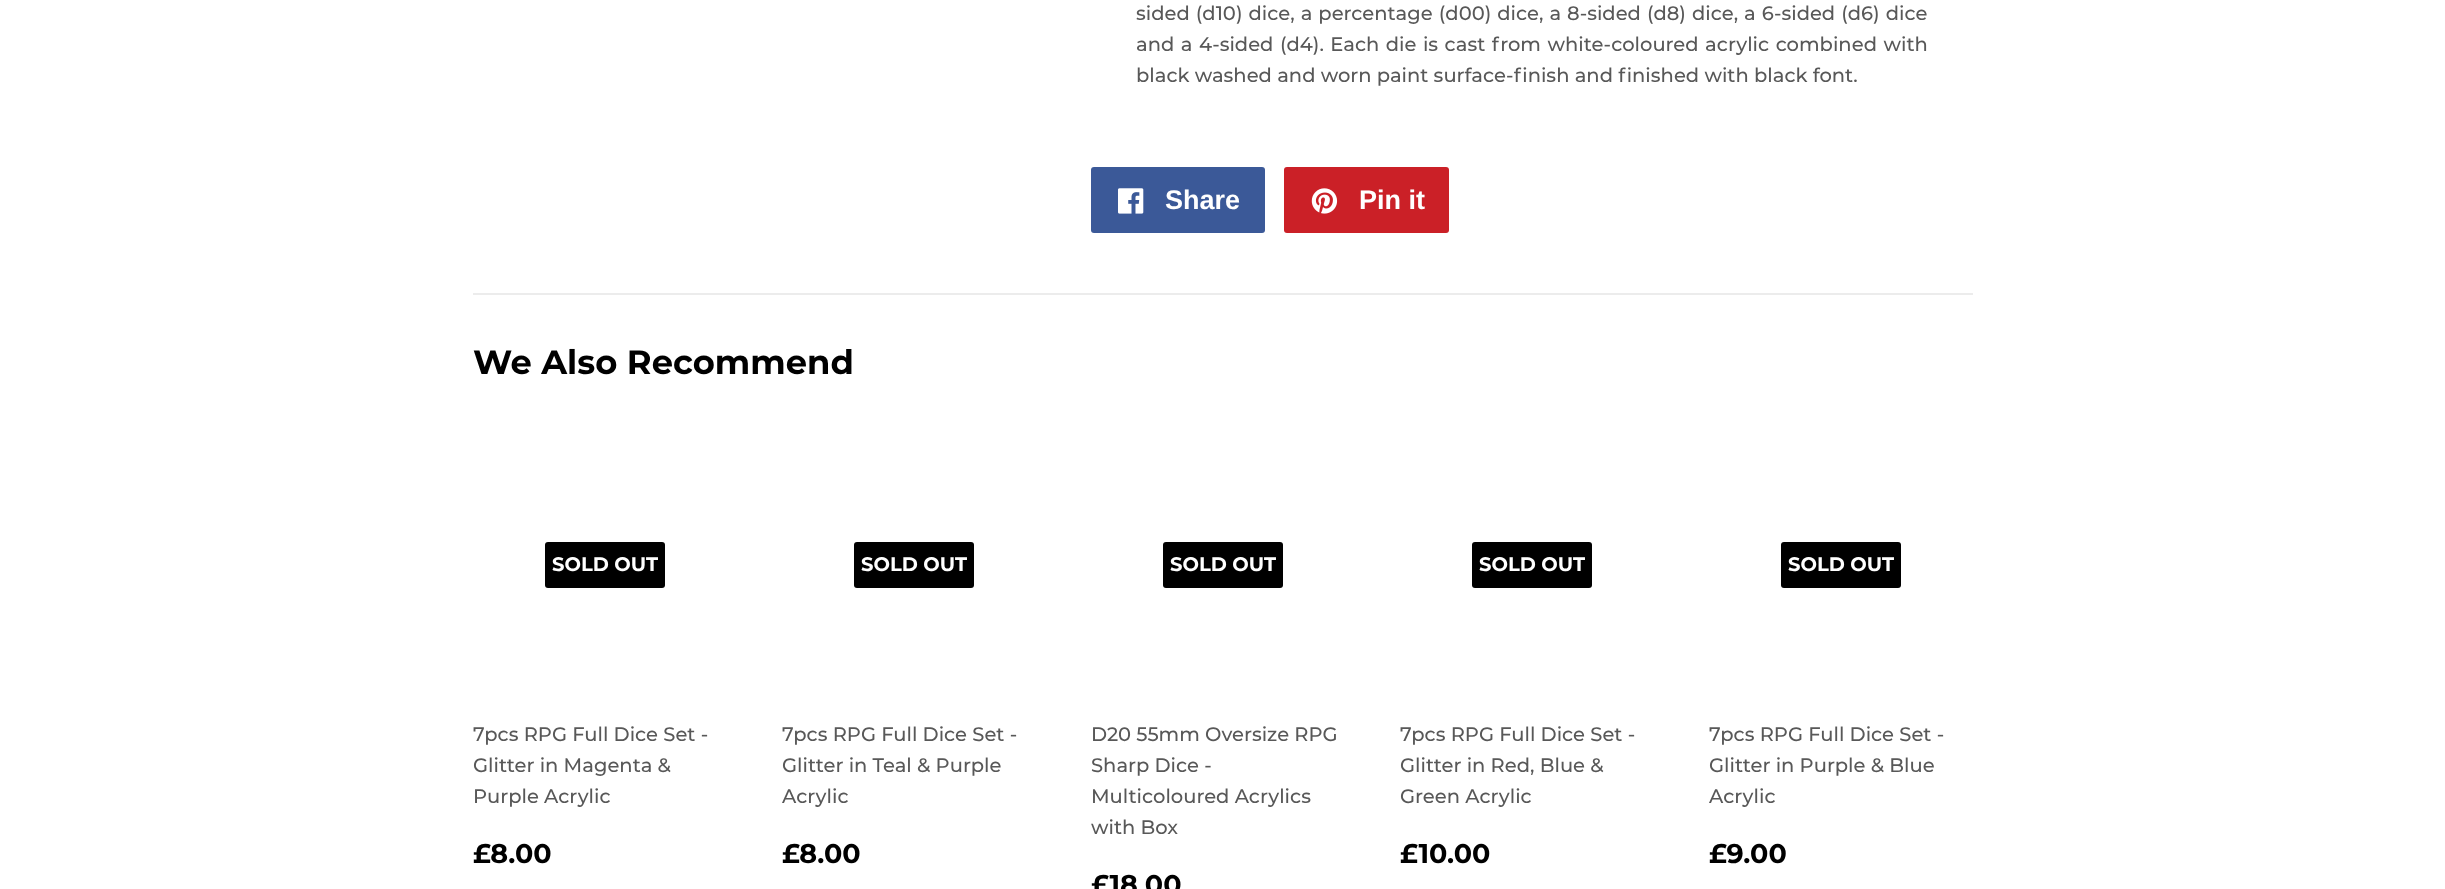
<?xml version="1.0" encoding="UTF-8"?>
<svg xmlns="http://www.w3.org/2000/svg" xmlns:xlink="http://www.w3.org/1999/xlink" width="2445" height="889">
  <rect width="100%" height="100%" fill="#ffffff" />
  <rect x="1091" y="167" width="174" height="66" rx="3" fill="#3b5998" />
  <image x="1118" y="188" width="26" height="26" xlink:href="image1.png" />
  <rect x="1284" y="167" width="165" height="66" rx="3" fill="#cb2027" />
  <image x="1311" y="188" width="27" height="26" xlink:href="image2.png" />
  <rect x="473" y="293" width="1500" height="2" fill="#ececec" />
  <rect x="545" y="542" width="120" height="46" rx="3" fill="#000000" />
  <rect x="854" y="542" width="120" height="46" rx="3" fill="#000000" />
  <rect x="1163" y="542" width="120" height="46" rx="3" fill="#000000" />
  <rect x="1472" y="542" width="120" height="46" rx="3" fill="#000000" />
  <rect x="1781" y="542" width="120" height="46" rx="3" fill="#000000" />
  <text x="1136" y="20" word-spacing="0.8" style="font-family: Montserrat; font-size: 19.5px; font-weight: 500; fill: #585858">sided (d10) dice, a percentage (d00) dice, a 8-sided (d8) dice, a 6-sided (d6) dice</text>
  <text x="1136" y="51" word-spacing="1.25" style="font-family: Montserrat; font-size: 19.5px; font-weight: 500; fill: #585858">and a 4-sided (d4). Each die is cast from white-coloured acrylic combined with</text>
  <text x="1136" y="82" style="font-family: Montserrat; font-size: 19.5px; font-weight: 500; fill: #585858">black washed and worn paint surface-finish and finished with black font.</text>
  <text x="1165" y="209" style="font-family: Liberation Sans; font-size: 27px; font-weight: bold; fill: #ffffff">Share</text>
  <text x="1359" y="209" style="font-family: Liberation Sans; font-size: 27px; font-weight: bold; fill: #ffffff">Pin it</text>
  <text x="473" y="374" style="font-family: Montserrat; font-size: 33.75px; font-weight: bold; fill: #000000">We Also Recommend</text>
  <text x="552" y="571" style="font-family: Montserrat; font-size: 19.5px; font-weight: bold; fill: #ffffff">SOLD OUT</text>
  <text x="473" y="741" style="font-family: Montserrat; font-size: 19.5px; font-weight: 500; fill: #585858">7pcs RPG Full Dice Set -</text>
  <text x="473" y="772" style="font-family: Montserrat; font-size: 19.5px; font-weight: 500; fill: #585858">Glitter in Magenta &amp;</text>
  <text x="473" y="803" style="font-family: Montserrat; font-size: 19.5px; font-weight: 500; fill: #585858">Purple Acrylic</text>
  <text x="473" y="863" style="font-family: Montserrat; font-size: 27px; font-weight: bold; fill: #000000">£8.00</text>
  <text x="861" y="571" style="font-family: Montserrat; font-size: 19.5px; font-weight: bold; fill: #ffffff">SOLD OUT</text>
  <text x="782" y="741" style="font-family: Montserrat; font-size: 19.5px; font-weight: 500; fill: #585858">7pcs RPG Full Dice Set -</text>
  <text x="782" y="772" style="font-family: Montserrat; font-size: 19.5px; font-weight: 500; fill: #585858">Glitter in Teal &amp; Purple</text>
  <text x="782" y="803" style="font-family: Montserrat; font-size: 19.5px; font-weight: 500; fill: #585858">Acrylic</text>
  <text x="782" y="863" style="font-family: Montserrat; font-size: 27px; font-weight: bold; fill: #000000">£8.00</text>
  <text x="1170" y="571" style="font-family: Montserrat; font-size: 19.5px; font-weight: bold; fill: #ffffff">SOLD OUT</text>
  <text x="1091" y="741" style="font-family: Montserrat; font-size: 19.5px; font-weight: 500; fill: #585858">D20 55mm Oversize RPG</text>
  <text x="1091" y="772" style="font-family: Montserrat; font-size: 19.5px; font-weight: 500; fill: #585858">Sharp Dice -</text>
  <text x="1091" y="803" style="font-family: Montserrat; font-size: 19.5px; font-weight: 500; fill: #585858">Multicoloured Acrylics</text>
  <text x="1091" y="834" style="font-family: Montserrat; font-size: 19.5px; font-weight: 500; fill: #585858">with Box</text>
  <text x="1091" y="894" style="font-family: Montserrat; font-size: 27px; font-weight: bold; fill: #000000">£18.00</text>
  <text x="1479" y="571" style="font-family: Montserrat; font-size: 19.5px; font-weight: bold; fill: #ffffff">SOLD OUT</text>
  <text x="1400" y="741" style="font-family: Montserrat; font-size: 19.5px; font-weight: 500; fill: #585858">7pcs RPG Full Dice Set -</text>
  <text x="1400" y="772" style="font-family: Montserrat; font-size: 19.5px; font-weight: 500; fill: #585858">Glitter in Red, Blue &amp;</text>
  <text x="1400" y="803" style="font-family: Montserrat; font-size: 19.5px; font-weight: 500; fill: #585858">Green Acrylic</text>
  <text x="1400" y="863" style="font-family: Montserrat; font-size: 27px; font-weight: bold; fill: #000000">£10.00</text>
  <text x="1788" y="571" style="font-family: Montserrat; font-size: 19.5px; font-weight: bold; fill: #ffffff">SOLD OUT</text>
  <text x="1709" y="741" style="font-family: Montserrat; font-size: 19.5px; font-weight: 500; fill: #585858">7pcs RPG Full Dice Set -</text>
  <text x="1709" y="772" style="font-family: Montserrat; font-size: 19.5px; font-weight: 500; fill: #585858">Glitter in Purple &amp; Blue</text>
  <text x="1709" y="803" style="font-family: Montserrat; font-size: 19.5px; font-weight: 500; fill: #585858">Acrylic</text>
  <text x="1709" y="863" style="font-family: Montserrat; font-size: 27px; font-weight: bold; fill: #000000">£9.00</text>
</svg>
